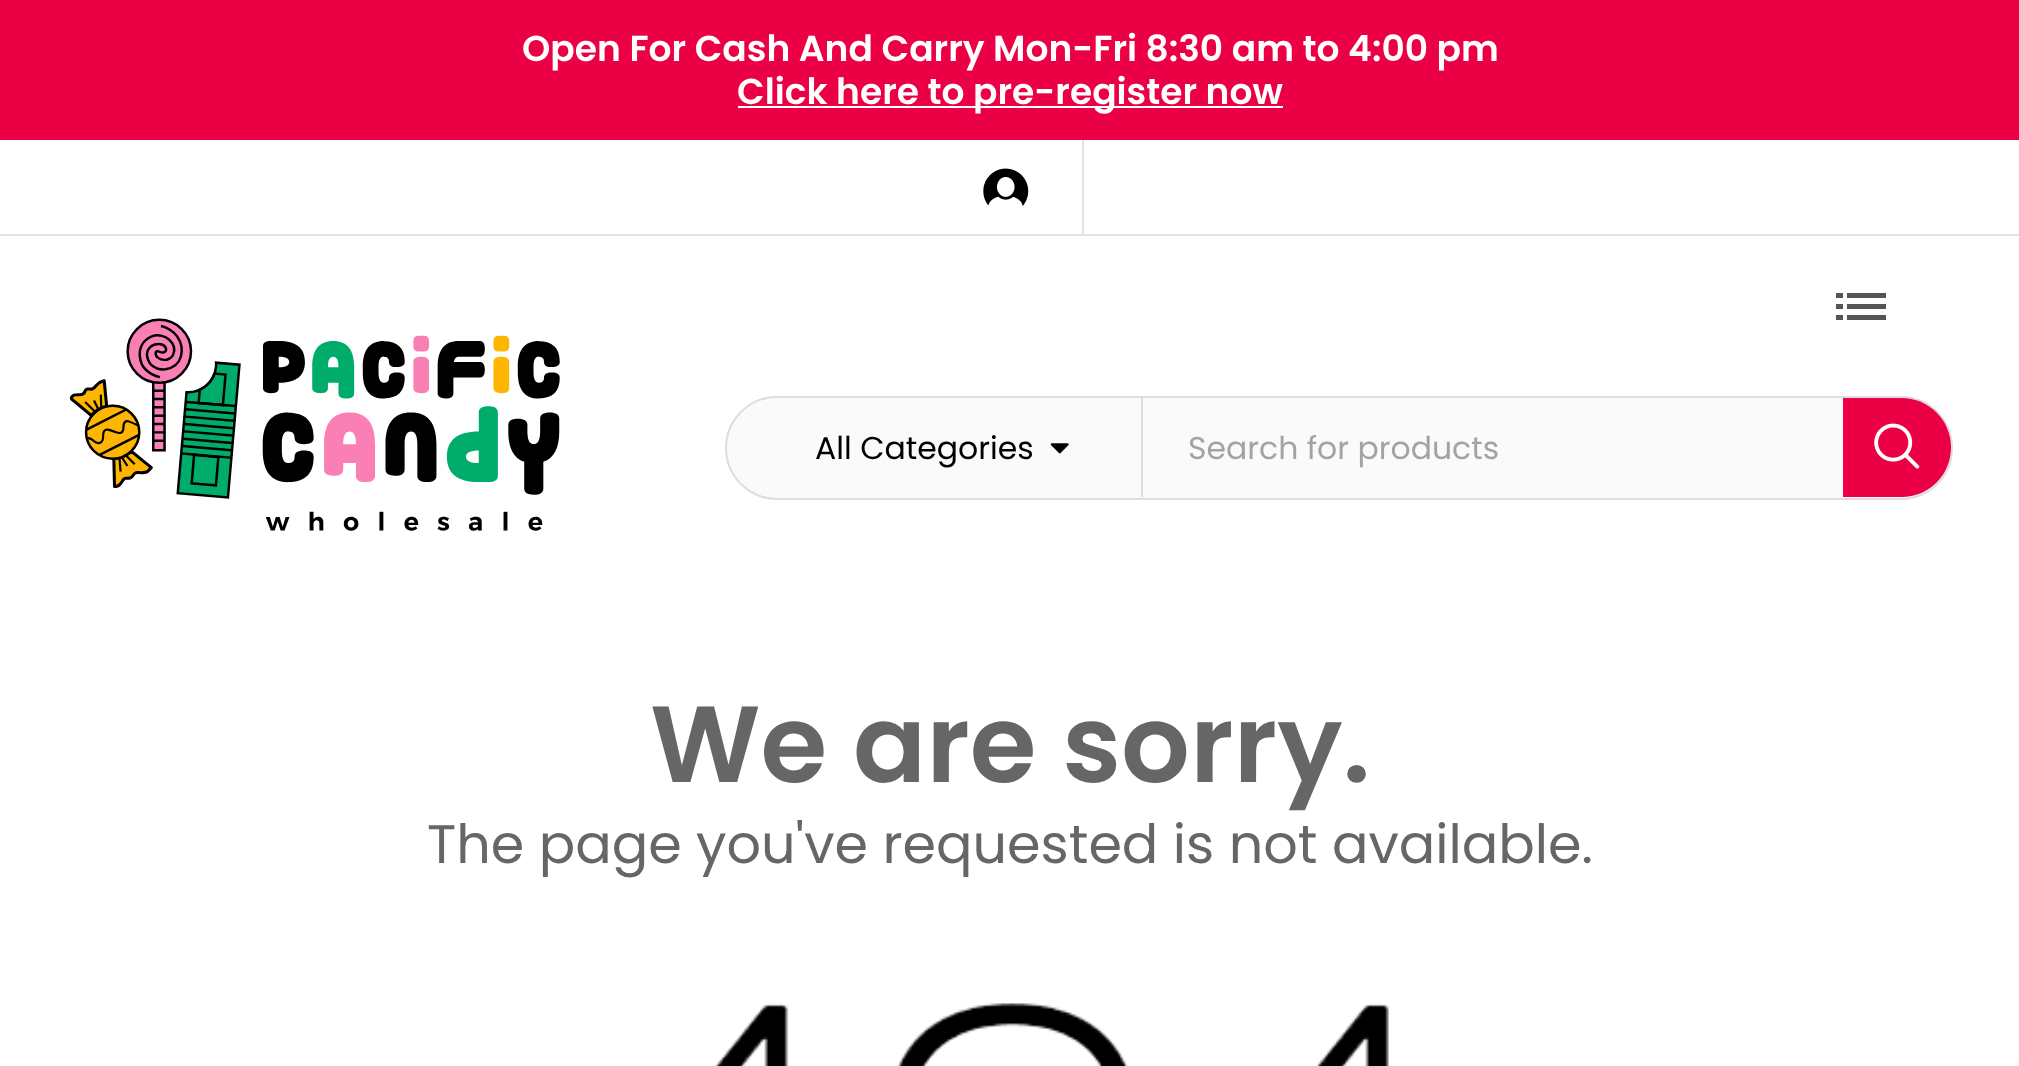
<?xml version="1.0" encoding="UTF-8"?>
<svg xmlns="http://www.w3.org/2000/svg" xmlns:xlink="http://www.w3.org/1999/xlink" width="2019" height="1066">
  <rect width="100%" height="100%" fill="#ffffff" />
  <rect width="2019" height="140" fill="#eb0045" />
  <rect x="738" y="106" width="545" height="2" fill="#ffffff" />
  <rect y="234" width="2019" height="2" fill="#e3e3e3" />
  <image x="983" y="168" width="46" height="38" xlink:href="image1.png" />
  <rect x="1082" y="140" width="2" height="94" fill="#e3e3e3" />
  <rect x="1836" y="293" width="7" height="5" fill="#555555" />
  <rect x="1847" y="293" width="39" height="5" fill="#555555" />
  <rect x="1836" y="304" width="7" height="5" fill="#555555" />
  <rect x="1847" y="304" width="39" height="5" fill="#555555" />
  <rect x="1836" y="315" width="7" height="5" fill="#555555" />
  <rect x="1847" y="315" width="39" height="5" fill="#555555" />
  <image x="69" y="318" width="491" height="213" xlink:href="image2.png" />
  <rect x="726" y="397" width="1226" height="102" rx="51" fill="#fafafa" stroke="#dddddd" stroke-width="2" />
  <image x="1050" y="443" width="19" height="11" xlink:href="image3.png" />
  <rect x="1141" y="398" width="2" height="99" fill="#dddddd" />
  <path d="M 1843 398 h 58.5 c 27.5 0 49.5 22 49.5 49.5 c 0 27.5 -22 49.5 -49.5 49.5 h -58.5 z" fill="#eb0045" />
  <image x="1874" y="423" width="46" height="46" xlink:href="image4.png" />
  <image x="715" y="1003" width="674" height="63" xlink:href="image5.png" />
  <text x="522" y="61" style="font-family: Poppins; font-size: 36.05px; font-weight: 600; fill: #ffffff">Open For Cash And Carry Mon-Fri 8:30 am to 4:00 pm</text>
  <text x="737" y="104" style="font-family: Poppins; font-size: 36.05px; font-weight: 600; fill: #ffffff">Click here to pre-register now</text>
  <text x="815" y="459" style="font-family: Poppins; font-size: 31.5px; fill: #000000">All Categories</text>
  <text x="1188" y="459" style="font-family: Poppins; font-size: 31.5px; fill: #a3a3a3">Search for products</text>
  <text x="650" y="782" style="font-family: Poppins; font-size: 108px; font-weight: 600; fill: #666666">We are sorry.</text>
  <text x="427" y="863" style="font-family: Poppins; font-size: 54px; fill: #666666">The page you've requested is not available.</text>
</svg>
